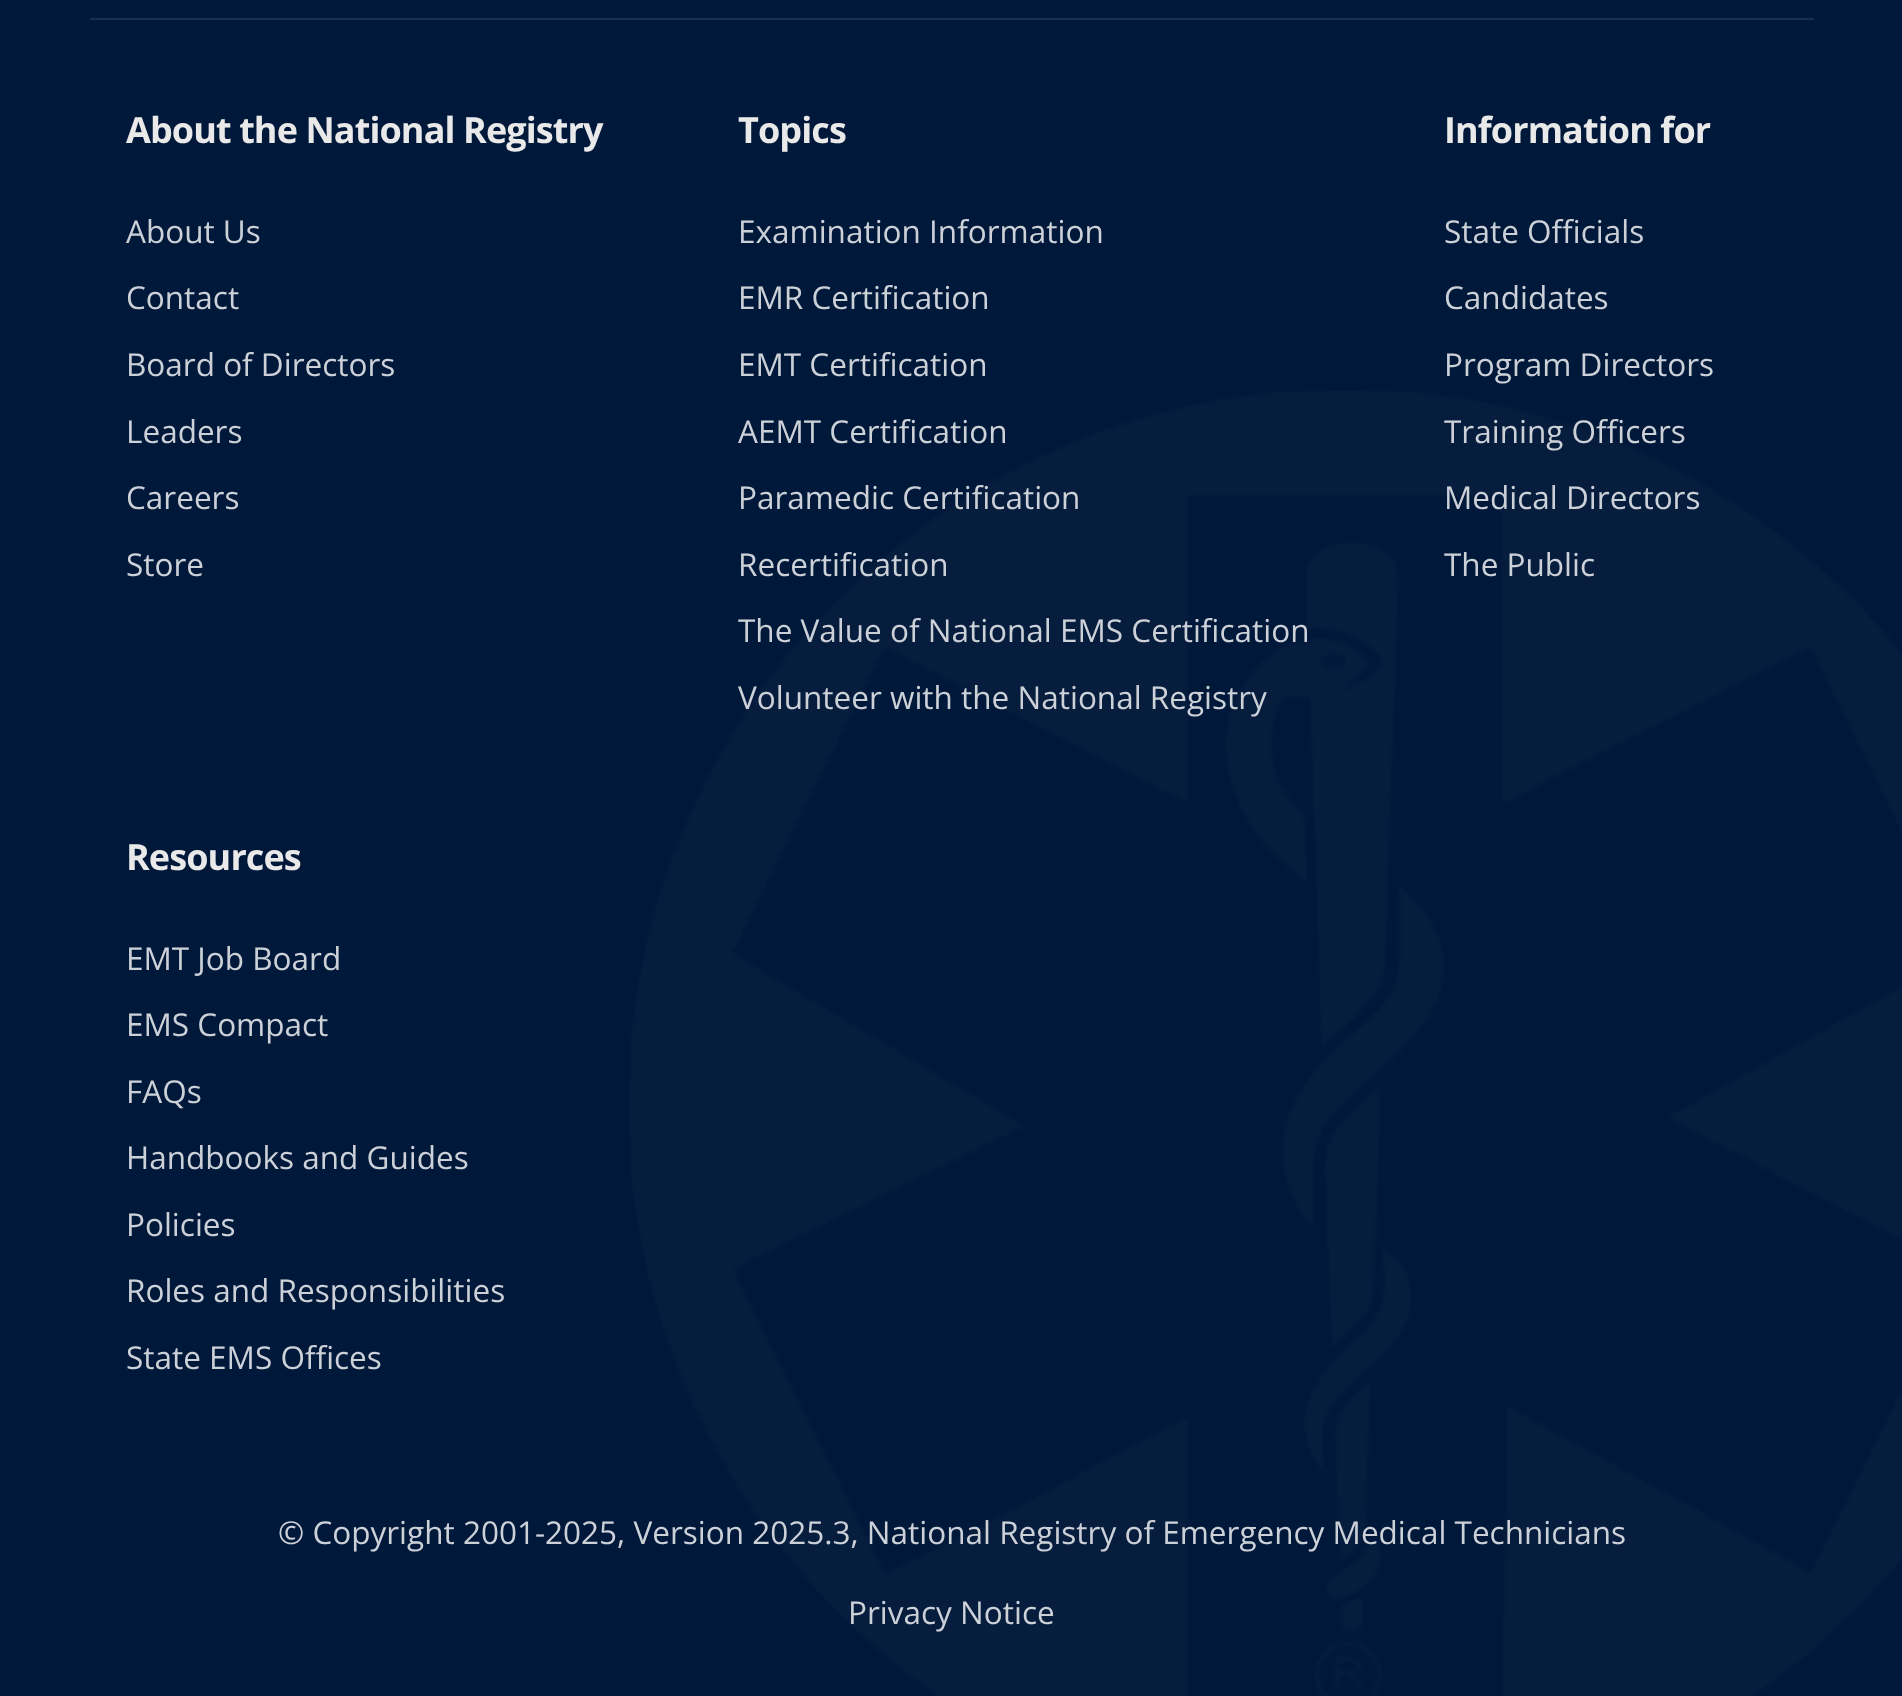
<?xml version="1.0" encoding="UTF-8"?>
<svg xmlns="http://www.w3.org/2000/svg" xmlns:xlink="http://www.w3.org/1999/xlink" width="1902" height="1696">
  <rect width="100%" height="100%" fill="#00183a" />
  <rect x="90" y="18" width="1724" height="2" fill="#1a2f4e" />
  <image x="630" y="391" width="1272" height="1305" xlink:href="image1.png" />
  <text x="126" y="143" style="font-family: Open Sans; font-size: 36px; font-weight: bold; letter-spacing: -0.9px; fill: #e9e9e9">About the National Registry</text>
  <text x="126" y="243" style="font-family: Open Sans; font-size: 31.5px; fill: #ccd1d8">About Us</text>
  <text x="126" y="309" style="font-family: Open Sans; font-size: 31.5px; fill: #ccd1d8">Contact</text>
  <text x="126" y="376" style="font-family: Open Sans; font-size: 31.5px; fill: #ccd1d8">Board of Directors</text>
  <text x="126" y="443" style="font-family: Open Sans; font-size: 31.5px; fill: #ccd1d8">Leaders</text>
  <text x="126" y="509" style="font-family: Open Sans; font-size: 31.5px; fill: #ccd1d8">Careers</text>
  <text x="126" y="576" style="font-family: Open Sans; font-size: 31.5px; fill: #ccd1d8">Store</text>
  <text x="738" y="143" style="font-family: Open Sans; font-size: 36px; font-weight: bold; letter-spacing: -0.9px; fill: #e9e9e9">Topics</text>
  <text x="738" y="243" style="font-family: Open Sans; font-size: 31.5px; fill: #ccd1d8">Examination Information</text>
  <text x="738" y="309" style="font-family: Open Sans; font-size: 31.5px; fill: #ccd1d8">EMR Certification</text>
  <text x="738" y="376" style="font-family: Open Sans; font-size: 31.5px; fill: #ccd1d8">EMT Certification</text>
  <text x="738" y="443" style="font-family: Open Sans; font-size: 31.5px; fill: #ccd1d8">AEMT Certification</text>
  <text x="738" y="509" style="font-family: Open Sans; font-size: 31.5px; fill: #ccd1d8">Paramedic Certification</text>
  <text x="738" y="576" style="font-family: Open Sans; font-size: 31.5px; fill: #ccd1d8">Recertification</text>
  <text x="738" y="642" style="font-family: Open Sans; font-size: 31.5px; fill: #ccd1d8">The Value of National EMS Certification</text>
  <text x="738" y="709" style="font-family: Open Sans; font-size: 31.5px; fill: #ccd1d8">Volunteer with the National Registry</text>
  <text x="1444" y="143" style="font-family: Open Sans; font-size: 36px; font-weight: bold; letter-spacing: -0.9px; fill: #e9e9e9">Information for</text>
  <text x="1444" y="243" style="font-family: Open Sans; font-size: 31.5px; fill: #ccd1d8">State Officials</text>
  <text x="1444" y="309" style="font-family: Open Sans; font-size: 31.5px; fill: #ccd1d8">Candidates</text>
  <text x="1444" y="376" style="font-family: Open Sans; font-size: 31.5px; fill: #ccd1d8">Program Directors</text>
  <text x="1444" y="443" style="font-family: Open Sans; font-size: 31.5px; fill: #ccd1d8">Training Officers</text>
  <text x="1444" y="509" style="font-family: Open Sans; font-size: 31.5px; fill: #ccd1d8">Medical Directors</text>
  <text x="1444" y="576" style="font-family: Open Sans; font-size: 31.5px; fill: #ccd1d8">The Public</text>
  <text x="126" y="870" style="font-family: Open Sans; font-size: 36px; font-weight: bold; letter-spacing: -0.9px; fill: #e9e9e9">Resources</text>
  <text x="126" y="970" style="font-family: Open Sans; font-size: 31.5px; fill: #ccd1d8">EMT Job Board</text>
  <text x="126" y="1036" style="font-family: Open Sans; font-size: 31.5px; fill: #ccd1d8">EMS Compact</text>
  <text x="126" y="1103" style="font-family: Open Sans; font-size: 31.5px; fill: #ccd1d8">FAQs</text>
  <text x="126" y="1169" style="font-family: Open Sans; font-size: 31.5px; fill: #ccd1d8">Handbooks and Guides</text>
  <text x="126" y="1236" style="font-family: Open Sans; font-size: 31.5px; fill: #ccd1d8">Policies</text>
  <text x="126" y="1302" style="font-family: Open Sans; font-size: 31.5px; fill: #ccd1d8">Roles and Responsibilities</text>
  <text x="126" y="1369" style="font-family: Open Sans; font-size: 31.5px; fill: #ccd1d8">State EMS Offices</text>
  <text x="278" y="1544" style="font-family: Open Sans; font-size: 31.5px; fill: #ccd1d8">© Copyright 2001-2025, Version 2025.3, National Registry of Emergency Medical Technicians</text>
  <text x="848" y="1624" style="font-family: Open Sans; font-size: 31.5px; fill: #ccd1d8">Privacy Notice</text>
</svg>
